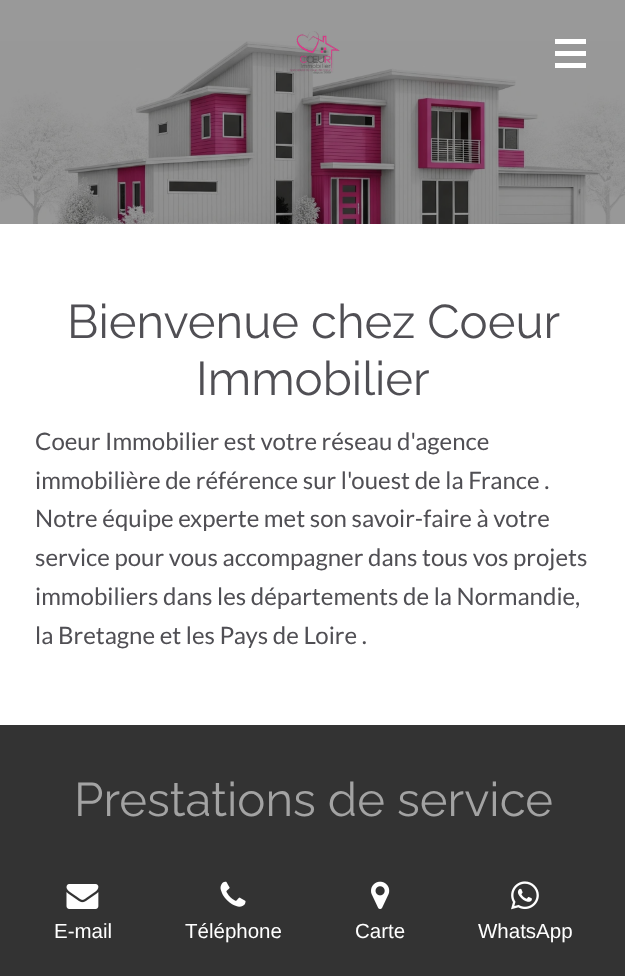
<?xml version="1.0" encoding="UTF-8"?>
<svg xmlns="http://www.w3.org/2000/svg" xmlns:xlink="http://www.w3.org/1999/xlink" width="625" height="976">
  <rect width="100%" height="100%" fill="#ffffff" />
  <rect width="625" height="41" fill="#999999" />
  <image x="0" y="41" width="625" height="183" xlink:href="image2.png" />
  <image x="289" y="31" width="51" height="43" xlink:href="image1.png" />
  <rect x="555" y="51" width="31" height="5" fill="#ffffff" />
  <rect x="555" y="39" width="31" height="5" fill="#ffffff" />
  <rect x="555" y="63" width="31" height="5" fill="#ffffff" />
  <rect y="725" width="625" height="251" fill="#333333" />
  <image x="66" y="884" width="33" height="25" xlink:href="image3.png" />
  <image x="220" y="881" width="26" height="26" xlink:href="image4.png" />
  <image x="371" y="881" width="19" height="28" xlink:href="image5.png" />
  <image x="511" y="881" width="28" height="29" xlink:href="image6.png" />
  <text x="67" y="338" style="font-family: Raleway; font-size: 47.25px; fill: #504f54">Bienvenue chez Coeur</text>
  <text x="196" y="395" style="font-family: Raleway; font-size: 47.25px; fill: #504f54">Immobilier</text>
  <text x="35" y="450" style="font-family: Lato; font-size: 24px; fill: #504f54">Coeur Immobilier est votre réseau d'agence</text>
  <text x="35" y="489" style="font-family: Lato; font-size: 24px; fill: #504f54">immobilière de référence sur l'ouest de la France .</text>
  <text x="35" y="527" style="font-family: Lato; font-size: 24px; fill: #504f54">Notre équipe experte met son savoir-faire à votre</text>
  <text x="35" y="566" style="font-family: Lato; font-size: 24px; fill: #504f54">service pour vous accompagner dans tous vos projets</text>
  <text x="35" y="605" style="font-family: Lato; font-size: 24px; fill: #504f54">immobiliers dans les départements de la Normandie,</text>
  <text x="35" y="644" style="font-family: Lato; font-size: 24px; fill: #504f54">la Bretagne et les Pays de Loire .</text>
  <text x="74" y="816" style="font-family: Raleway; font-size: 47.25px; fill: #a3a3a3">Prestations de service</text>
  <text x="54" y="938" style="font-family: Liberation Sans; font-size: 20.5px; fill: #ffffff">E-mail</text>
  <text x="185" y="938" style="font-family: Liberation Sans; font-size: 20.5px; fill: #ffffff">Téléphone</text>
  <text x="355" y="938" style="font-family: Liberation Sans; font-size: 20.5px; fill: #ffffff">Carte</text>
  <text x="478" y="938" style="font-family: Liberation Sans; font-size: 20.5px; fill: #ffffff">WhatsApp</text>
</svg>
